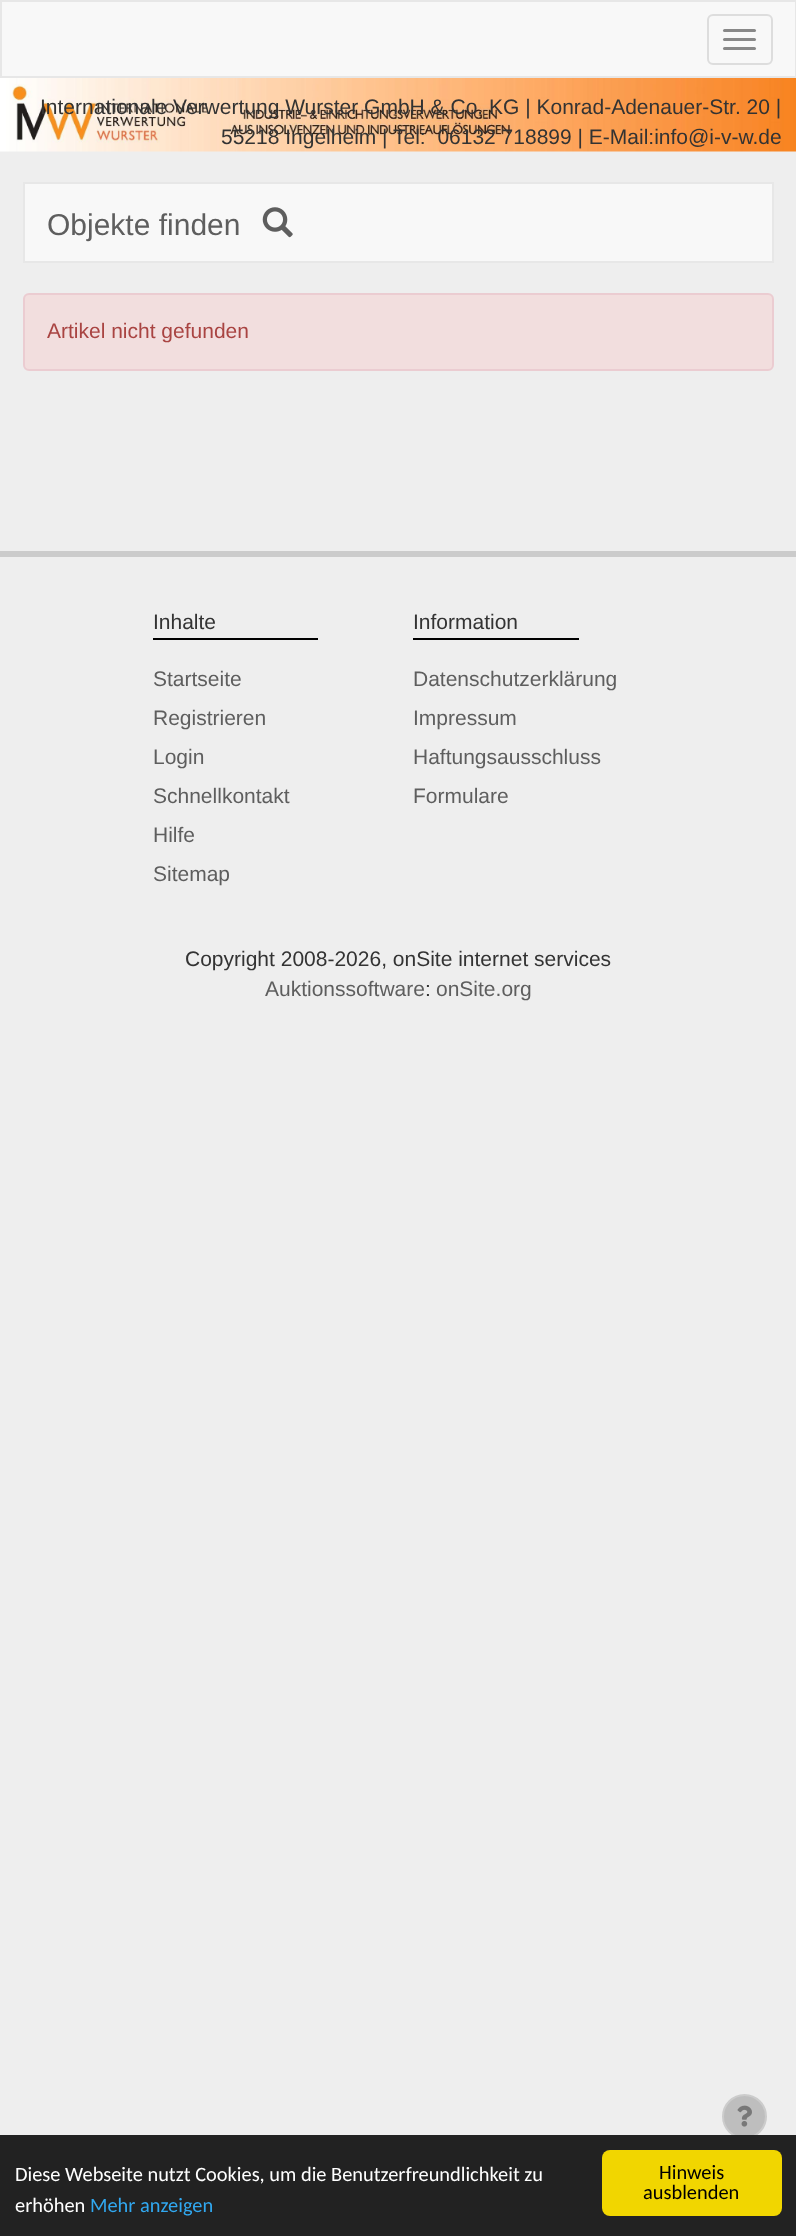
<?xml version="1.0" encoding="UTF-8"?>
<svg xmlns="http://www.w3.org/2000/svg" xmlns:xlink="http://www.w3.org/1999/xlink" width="796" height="2236">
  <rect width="100%" height="100%" fill="#eeeeee" />
  <rect x="1" y="1" width="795" height="76" fill="#f8f8f8" stroke="#e7e7e7" stroke-width="2" />
  <rect x="708" y="15" width="64" height="49" rx="5" fill="none" stroke="#dddddd" stroke-width="2" />
  <rect x="723" y="29" width="33" height="3" rx="1.5" fill="#888888" />
  <rect x="723" y="38" width="33" height="3" rx="1.5" fill="#888888" />
  <rect x="723" y="47" width="33" height="3" rx="1.5" fill="#888888" />
  <image x="0" y="78" width="796" height="74" xlink:href="image1.png" />
  <rect x="24" y="183" width="749" height="79" fill="#f8f8f8" stroke="#e7e7e7" stroke-width="2" />
  <image x="262" y="207" width="31" height="31" xlink:href="image2.png" />
  <rect x="24" y="294" width="749" height="76" rx="5" fill="#f2dede" stroke="#ebccd1" stroke-width="2" />
  <rect y="551" width="796" height="6" fill="#cbcbcb" />
  <rect x="153" y="638" width="165" height="2" fill="#000000" />
  <rect x="413" y="638" width="166" height="2" fill="#000000" />
  <circle cx="744.5" cy="2116.5" r="21.5" fill="#bebebe" stroke="#cccccc" stroke-width="2" />
  <image x="737" y="2105" width="15" height="22" xlink:href="image3.png" />
  <rect y="2135" width="796" height="101" fill="#222222" />
  <rect x="602" y="2150" width="180" height="66" rx="8" fill="#f1d600" />
  <text x="40" y="114" style="font-family: Liberation Sans; font-size: 21px; fill: #333333">Internationale Verwertung Wurster GmbH &amp; Co. KG | Konrad-Adenauer-Str. 20 |</text>
  <text x="221" y="144" style="font-family: Liberation Sans; font-size: 21px; fill: #333333" xml:space="preserve">55218 Ingelheim | Tel:  06132 718899 | E-Mail:info@i-v-w.de</text>
  <text x="47" y="235" style="font-family: Liberation Sans; font-size: 30px; fill: #5e5e5e">Objekte finden</text>
  <text x="47" y="338" style="font-family: Liberation Sans; font-size: 21px; fill: #a94442">Artikel nicht gefunden</text>
  <text x="153" y="629" style="font-family: Liberation Sans; font-size: 21px; fill: #333333">Inhalte</text>
  <text x="153" y="686" style="font-family: Liberation Sans; font-size: 21px; fill: #5e5e5e">Startseite</text>
  <text x="153" y="725" style="font-family: Liberation Sans; font-size: 21px; fill: #5e5e5e">Registrieren</text>
  <text x="153" y="764" style="font-family: Liberation Sans; font-size: 21px; fill: #5e5e5e">Login</text>
  <text x="153" y="803" style="font-family: Liberation Sans; font-size: 21px; fill: #5e5e5e">Schnellkontakt</text>
  <text x="153" y="842" style="font-family: Liberation Sans; font-size: 21px; fill: #5e5e5e">Hilfe</text>
  <text x="153" y="881" style="font-family: Liberation Sans; font-size: 21px; fill: #5e5e5e">Sitemap</text>
  <text x="413" y="629" style="font-family: Liberation Sans; font-size: 21px; fill: #333333">Information</text>
  <text x="413" y="686" style="font-family: Liberation Sans; font-size: 21px; fill: #5e5e5e">Datenschutzerklärung</text>
  <text x="413" y="725" style="font-family: Liberation Sans; font-size: 21px; fill: #5e5e5e">Impressum</text>
  <text x="413" y="764" style="font-family: Liberation Sans; font-size: 21px; fill: #5e5e5e">Haftungsausschluss</text>
  <text x="413" y="803" style="font-family: Liberation Sans; font-size: 21px; fill: #5e5e5e">Formulare</text>
  <text x="185" y="966" style="font-family: Liberation Sans; font-size: 21px; fill: #333333">Copyright 2008-2026, onSite internet services</text>
  <text x="265" y="996" style="font-family: Liberation Sans; font-size: 21px; fill: #5e5e5e">Auktionssoftware</text>
  <text x="425" y="996" style="font-family: Liberation Sans; font-size: 21px; fill: #333333">:</text>
  <text x="436" y="996" style="font-family: Liberation Sans; font-size: 21px; fill: #5e5e5e">onSite.org</text>
  <text x="15" y="2181" style="font-family: Carlito; font-size: 20.4px; fill: #ffffff">Diese Webseite nutzt Cookies, um die Benutzerfreundlichkeit zu</text>
  <text x="15" y="2212" style="font-family: Carlito; font-size: 20.4px; fill: #ffffff">erhöhen</text>
  <text x="90" y="2212" style="font-family: Carlito; font-size: 20.4px; fill: #31a8f0">Mehr anzeigen</text>
  <text x="659" y="2179" style="font-family: Carlito; font-size: 20.4px; fill: #000000">Hinweis</text>
  <text x="643" y="2199" style="font-family: Carlito; font-size: 20.4px; fill: #000000">ausblenden</text>
</svg>
